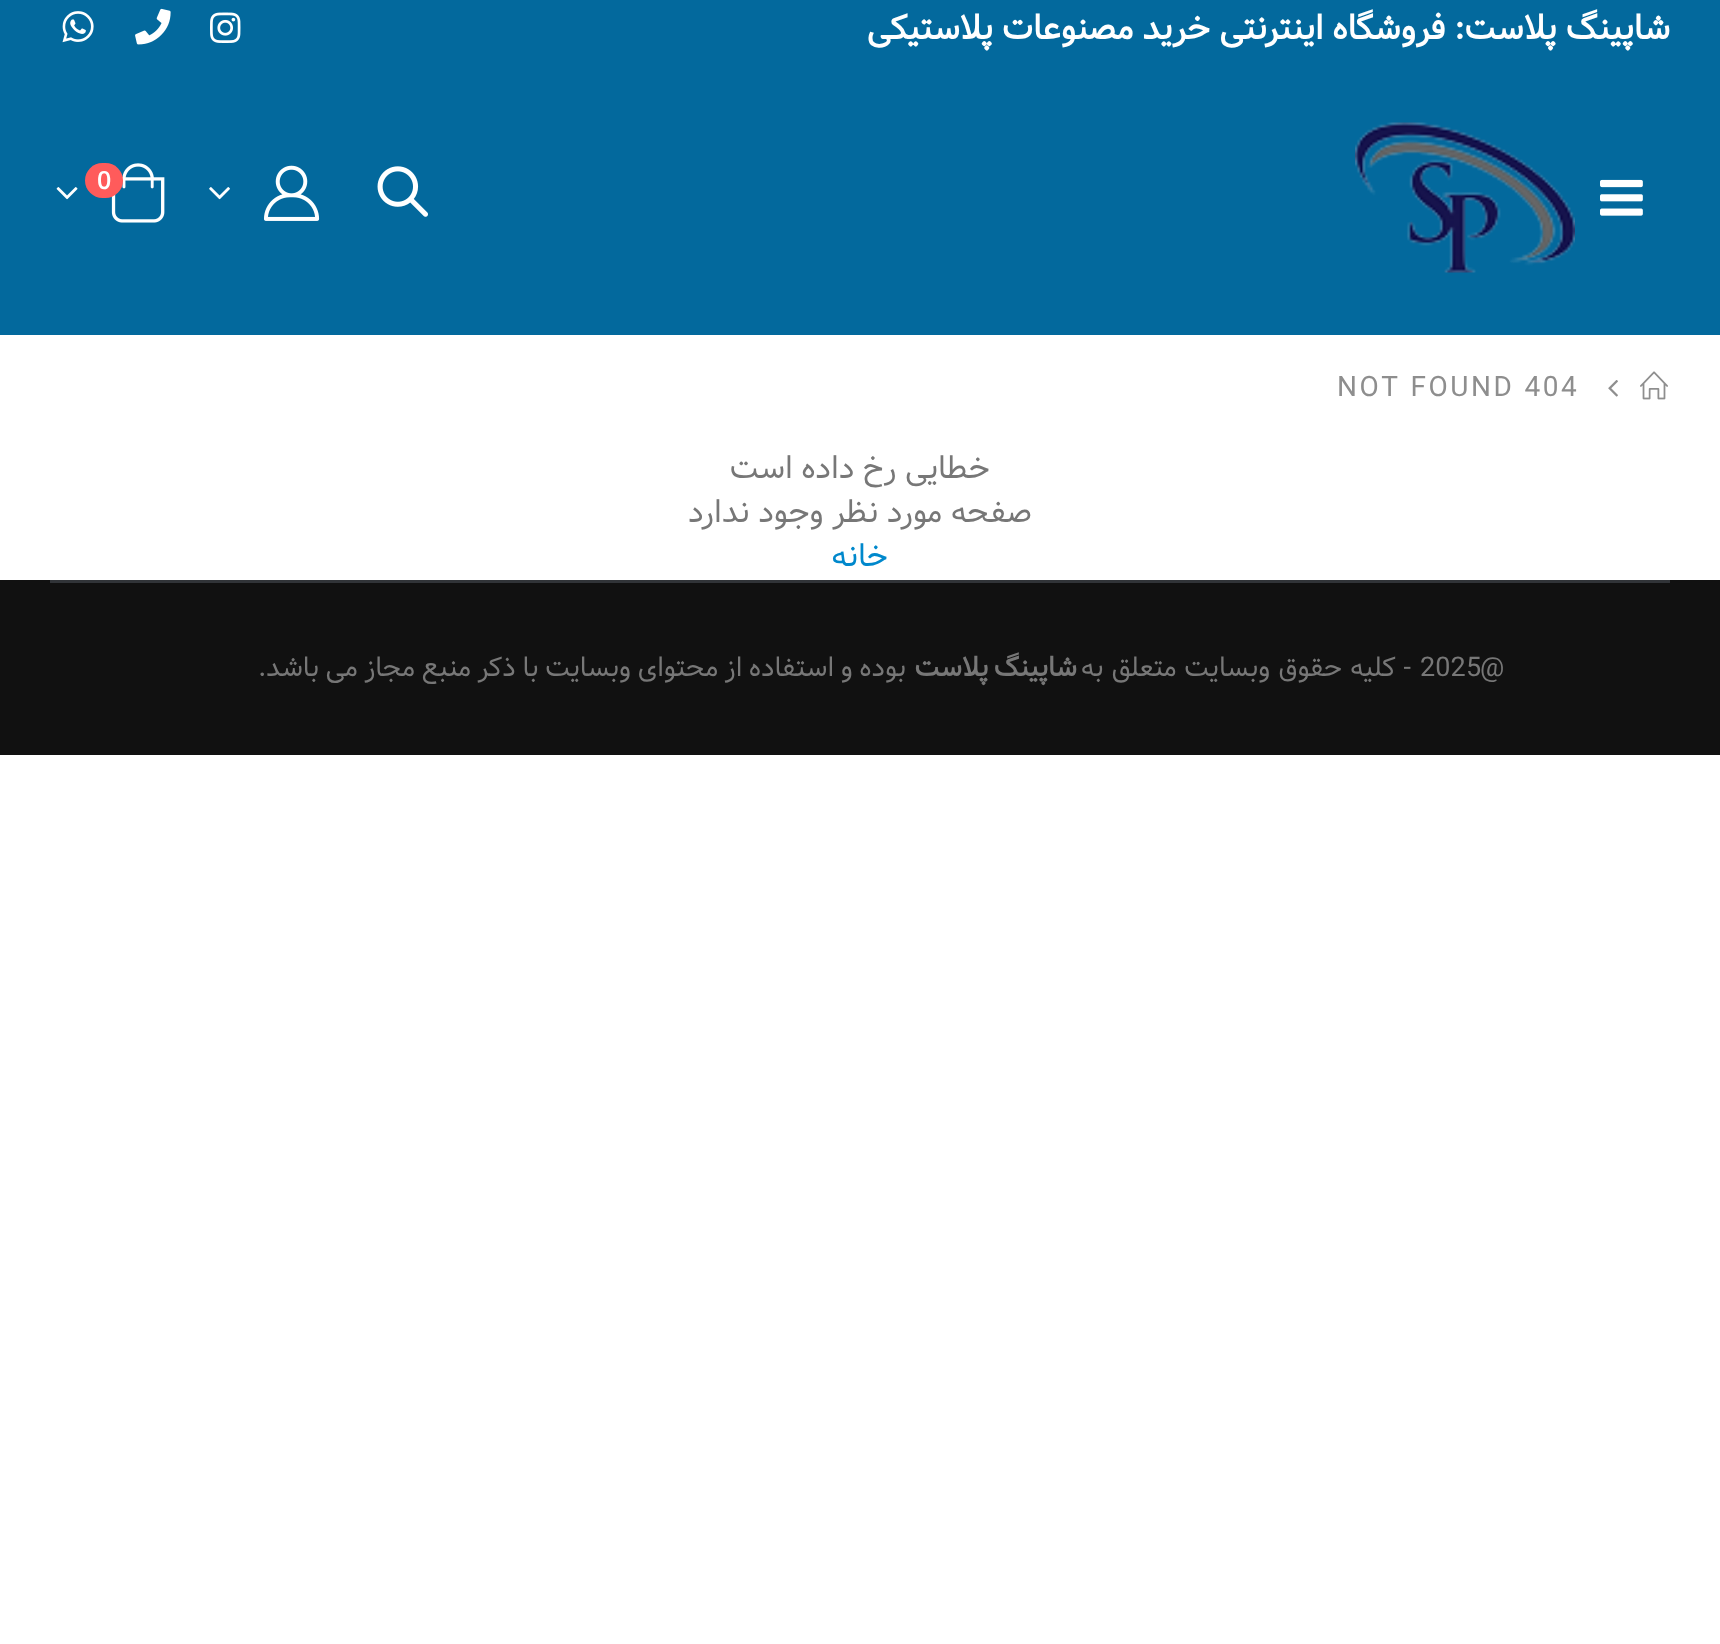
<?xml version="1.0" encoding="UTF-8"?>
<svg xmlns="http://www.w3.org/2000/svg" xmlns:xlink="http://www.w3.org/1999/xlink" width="1720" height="1644">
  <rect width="100%" height="100%" fill="#ffffff" />
  <rect width="1720" height="335" fill="#03699d" />
  <image x="210" y="12" width="31" height="31" xlink:href="image1.png" />
  <image x="135" y="8" width="36" height="37" xlink:href="image2.png" />
  <image x="62" y="11" width="32" height="32" xlink:href="image3.png" />
  <image x="1600" y="179" width="43" height="37" xlink:href="image4.png" />
  <image x="1355" y="122" width="220" height="151" xlink:href="image5.png" />
  <image x="377" y="166" width="51" height="51" xlink:href="image6.png" />
  <image x="264" y="165" width="56" height="56" xlink:href="image7.png" />
  <image x="209" y="187" width="21" height="13" xlink:href="image8.png" />
  <image x="111" y="163" width="54" height="60" xlink:href="image9.png" />
  <rect x="85" y="163" width="38" height="35" rx="17.5" fill="#ff5b5b" />
  <image x="56" y="187" width="22" height="13" xlink:href="image10.png" />
  <image x="1640" y="371" width="28" height="29" xlink:href="image11.png" />
  <image x="1608" y="380" width="10" height="17" xlink:href="image12.png" />
  <rect y="580" width="1720" height="175" fill="#111111" />
  <rect x="50" y="580" width="1620" height="3" fill="#313438" />
  <text x="1670" y="39" style="font-family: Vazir; font-size: 33.75px; font-weight: bold; direction: rtl; fill: #ffffff">شاپینگ پلاست: فروشگاه اینترنتی خرید مصنوعات پلاستیکی</text>
  <text x="97" y="189" style="font-family: Open Sans; font-size: 25px; font-weight: 600; fill: #ffffff">0</text>
  <text x="1337" y="396" style="font-family: Vazir; font-size: 28px; letter-spacing: 2.5px; fill: #8e8e8e">NOT FOUND 404</text>
  <text x="990" y="478" style="font-family: Vazir; font-size: 31.5px; direction: rtl; fill: #777777">خطایی رخ داده است</text>
  <text x="1032" y="522" style="font-family: Vazir; font-size: 31.5px; direction: rtl; fill: #777777">صفحه مورد نظر وجود ندارد</text>
  <text x="888" y="566" style="font-family: Vazir; font-size: 31.5px; direction: rtl; fill: #0088cc">خانه</text>
  <text x="1480" y="676" style="font-family: Vazir; font-size: 27px; letter-spacing: 0.15px; fill: #777777">@</text>
  <text x="1420" y="676" style="font-family: Vazir; font-size: 27px; letter-spacing: 0.15px; fill: #777777">2025</text>
  <text x="1411" y="676" word-spacing="0.5" style="font-family: Vazir; font-size: 27px; letter-spacing: 0.15px; direction: rtl; fill: #777777">- کلیه حقوق وبسایت متعلق به</text>
  <text x="1077" y="676" word-spacing="-2" style="font-family: Vazir; font-size: 27px; font-weight: bold; letter-spacing: 0.15px; direction: rtl; fill: #777777">شاپینگ پلاست</text>
  <text x="906" y="676" word-spacing="-0.75" style="font-family: Vazir; font-size: 27px; letter-spacing: 0.15px; direction: rtl; fill: #777777">بوده و استفاده از محتوای وبسایت با ذکر منبع مجاز می باشد.</text>
</svg>
